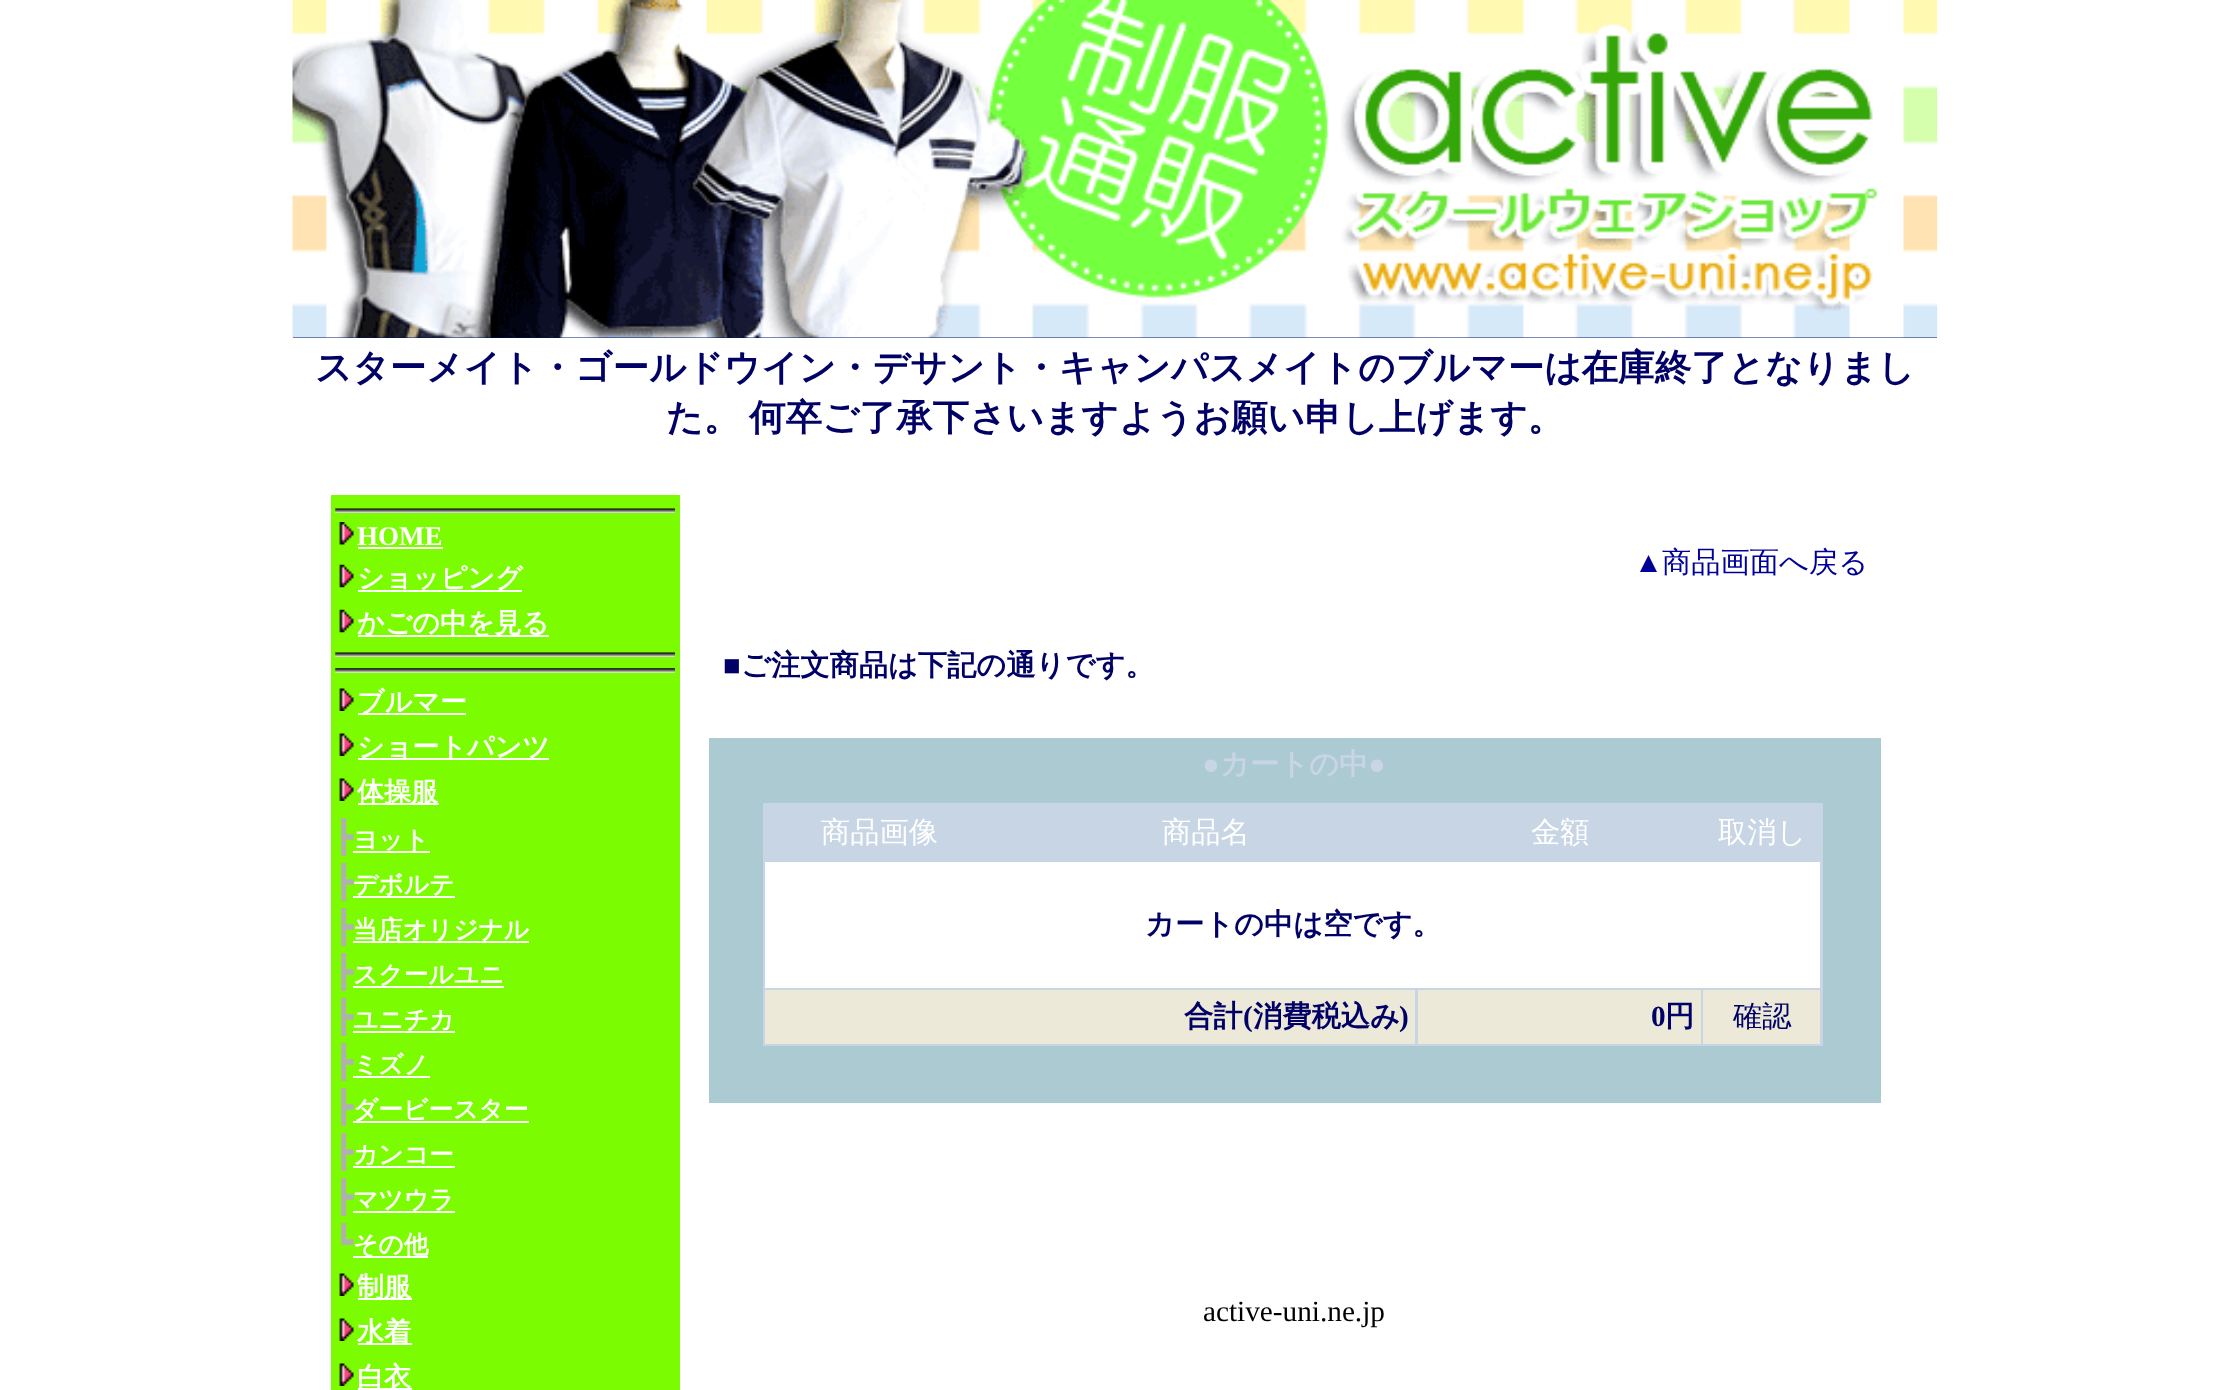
<?xml version="1.0" encoding="UTF-8"?>
<svg xmlns="http://www.w3.org/2000/svg" xmlns:xlink="http://www.w3.org/1999/xlink" width="2229" height="1390">
  <rect width="100%" height="100%" fill="#ffffff" />
  <rect x="293" y="337" width="1644" height="1" fill="#001362" />
  <image x="292" y="0" width="1646" height="338" xlink:href="image1.png" />
  <rect x="331" y="495" width="349" height="895" fill="#7cfc00" />
  <image x="335" y="508" width="340" height="5" xlink:href="image2.png" />
  <image x="339" y="522" width="15" height="23" xlink:href="image3.png" />
  <rect x="358" y="547" width="85" height="2" fill="#ffffff" />
  <image x="339" y="564" width="15" height="24" xlink:href="image4.png" />
  <rect x="358" y="590" width="164" height="2" fill="#ffffff" />
  <image x="339" y="609" width="15" height="24" xlink:href="image5.png" />
  <rect x="358" y="635" width="191" height="2" fill="#ffffff" />
  <image x="335" y="652" width="340" height="5" xlink:href="image2.png" />
  <image x="335" y="668" width="340" height="5" xlink:href="image6.png" />
  <image x="339" y="688" width="15" height="23" xlink:href="image7.png" />
  <rect x="358" y="713" width="108" height="2" fill="#ffffff" />
  <image x="339" y="733" width="15" height="23" xlink:href="image7.png" />
  <rect x="358" y="758" width="191" height="2" fill="#ffffff" />
  <image x="339" y="778" width="15" height="23" xlink:href="image8.png" />
  <rect x="358" y="803" width="81" height="2" fill="#ffffff" />
  <rect x="353" y="1256" width="75" height="2" fill="#ffffff" />
  <image x="339" y="1273" width="15" height="23" xlink:href="image7.png" />
  <rect x="358" y="1298" width="54" height="2" fill="#ffffff" />
  <image x="339" y="1318" width="15" height="23" xlink:href="image7.png" />
  <rect x="358" y="1343" width="54" height="2" fill="#ffffff" />
  <image x="339" y="1363" width="15" height="23" xlink:href="image7.png" />
  <rect x="358" y="1388" width="54" height="2" fill="#ffffff" />
  <rect x="709" y="738" width="1172" height="365" fill="#accad2" />
  <rect x="763" y="803" width="1060" height="243" fill="#c8d5e4" />
  <rect x="765" y="862" width="1055" height="126" fill="#ffffff" />
  <rect x="765" y="990" width="650" height="54" fill="#ece9d8" />
  <rect x="1418" y="990" width="283" height="54" fill="#ece9d8" />
  <rect x="1703" y="990" width="117" height="54" fill="#ece9d8" />
  <text x="315" y="380" style="font-family: WenQuanYi Zen Hei; font-size: 36.55px; font-weight: bold; fill: #000066">スターメイト・ゴールドウイン・デサント・キャンパスメイトのブルマーは在庫終了となりまし</text>
  <text x="666" y="430" style="font-family: WenQuanYi Zen Hei; font-size: 36.55px; font-weight: bold; fill: #000066">た。</text>
  <text x="749" y="430" style="font-family: WenQuanYi Zen Hei; font-size: 36.55px; font-weight: bold; fill: #000066">何卒ご了承下さいますようお願い申し上げます。</text>
  <text x="357" y="545" style="font-family: Liberation Serif; font-size: 27px; font-weight: bold; fill: #ffffff">HOME</text>
  <text x="357" y="587" style="font-family: WenQuanYi Zen Hei; font-size: 27px; font-weight: bold; fill: #ffffff">ショッピング</text>
  <text x="357" y="632" style="font-family: WenQuanYi Zen Hei; font-size: 27px; font-weight: bold; fill: #ffffff">かごの中を見る</text>
  <text x="357" y="711" style="font-family: WenQuanYi Zen Hei; font-size: 27px; font-weight: bold; fill: #ffffff">ブルマー</text>
  <text x="357" y="756" style="font-family: WenQuanYi Zen Hei; font-size: 27px; font-weight: bold; fill: #ffffff">ショートパンツ</text>
  <text x="357" y="801" style="font-family: WenQuanYi Zen Hei; font-size: 27px; font-weight: bold; fill: #ffffff">体操服</text>
  <text x="334" y="848" style="font-family: DejaVu Sans; font-size: 32px; fill: #b0b0b0">┣</text>
  <rect x="353" y="851" width="77" height="2" fill="#ffffff" />
  <text x="353" y="848" style="font-family: WenQuanYi Zen Hei; font-size: 24.75px; font-weight: bold; fill: #ffffff">ヨット</text>
  <text x="334" y="893" style="font-family: DejaVu Sans; font-size: 32px; fill: #b0b0b0">┣</text>
  <text x="353" y="893" style="font-family: WenQuanYi Zen Hei; font-size: 24.75px; font-weight: bold; fill: #ffffff">デボルテ</text>
  <rect x="353" y="896" width="102" height="2" fill="#ffffff" />
  <text x="334" y="938" style="font-family: DejaVu Sans; font-size: 32px; fill: #b0b0b0">┣</text>
  <rect x="353" y="941" width="176" height="2" fill="#ffffff" />
  <text x="353" y="938" style="font-family: WenQuanYi Zen Hei; font-size: 24.75px; font-weight: bold; fill: #ffffff">当店オリジナル</text>
  <text x="334" y="983" style="font-family: DejaVu Sans; font-size: 32px; fill: #b0b0b0">┣</text>
  <rect x="353" y="986" width="151" height="2" fill="#ffffff" />
  <text x="353" y="983" style="font-family: WenQuanYi Zen Hei; font-size: 24.75px; font-weight: bold; fill: #ffffff">スクールユニ</text>
  <text x="334" y="1028" style="font-family: DejaVu Sans; font-size: 32px; fill: #b0b0b0">┣</text>
  <text x="353" y="1028" style="font-family: WenQuanYi Zen Hei; font-size: 24.75px; font-weight: bold; fill: #ffffff">ユニチカ</text>
  <rect x="353" y="1031" width="102" height="2" fill="#ffffff" />
  <text x="334" y="1073" style="font-family: DejaVu Sans; font-size: 32px; fill: #b0b0b0">┣</text>
  <text x="353" y="1073" style="font-family: WenQuanYi Zen Hei; font-size: 24.75px; font-weight: bold; fill: #ffffff">ミズノ</text>
  <rect x="353" y="1076" width="77" height="2" fill="#ffffff" />
  <text x="334" y="1118" style="font-family: DejaVu Sans; font-size: 32px; fill: #b0b0b0">┣</text>
  <rect x="353" y="1121" width="176" height="2" fill="#ffffff" />
  <text x="353" y="1118" style="font-family: WenQuanYi Zen Hei; font-size: 24.75px; font-weight: bold; fill: #ffffff">ダービースター</text>
  <text x="334" y="1163" style="font-family: DejaVu Sans; font-size: 32px; fill: #b0b0b0">┣</text>
  <text x="353" y="1163" style="font-family: WenQuanYi Zen Hei; font-size: 24.75px; font-weight: bold; fill: #ffffff">カンコー</text>
  <rect x="353" y="1166" width="102" height="2" fill="#ffffff" />
  <text x="334" y="1208" style="font-family: DejaVu Sans; font-size: 32px; fill: #b0b0b0">┣</text>
  <rect x="353" y="1211" width="102" height="2" fill="#ffffff" />
  <text x="353" y="1208" style="font-family: WenQuanYi Zen Hei; font-size: 24.75px; font-weight: bold; fill: #ffffff">マツウラ</text>
  <text x="334" y="1253" style="font-family: DejaVu Sans; font-size: 32px; fill: #b0b0b0">┗</text>
  <text x="353" y="1253" style="font-family: WenQuanYi Zen Hei; font-size: 24.75px; font-weight: bold; fill: #ffffff">その他</text>
  <text x="357" y="1296" style="font-family: WenQuanYi Zen Hei; font-size: 27px; font-weight: bold; fill: #ffffff">制服</text>
  <text x="357" y="1341" style="font-family: WenQuanYi Zen Hei; font-size: 27px; font-weight: bold; fill: #ffffff">水着</text>
  <text x="357" y="1386" style="font-family: WenQuanYi Zen Hei; font-size: 27px; font-weight: bold; fill: #ffffff">白衣</text>
  <text x="1634" y="572" style="font-family: Liberation Serif; font-size: 29.25px; fill: #000099">▲</text>
  <text x="1662" y="572" style="font-family: WenQuanYi Zen Hei; font-size: 29.25px; font-weight: 500; fill: #000099">商品画面へ戻る</text>
  <text x="723" y="675" style="font-family: Liberation Serif; font-size: 29.25px; font-weight: bold; fill: #000066">■</text>
  <text x="741" y="675" style="font-family: WenQuanYi Zen Hei; font-size: 29.25px; font-weight: bold; fill: #000066">ご注文商品は下記の通りです。</text>
  <text x="1202" y="774" style="font-family: Liberation Serif; font-size: 29.25px; font-weight: bold; fill: #c8d5e4">●</text>
  <text x="1220" y="774" style="font-family: WenQuanYi Zen Hei; font-size: 29.25px; font-weight: bold; fill: #c8d5e4">カートの中</text>
  <text x="1368" y="774" style="font-family: Liberation Serif; font-size: 29.25px; font-weight: bold; fill: #c8d5e4">●</text>
  <text x="821" y="842" style="font-family: WenQuanYi Zen Hei; font-size: 29.25px; font-weight: 500; fill: #ffffff">商品画像</text>
  <text x="1162" y="842" style="font-family: WenQuanYi Zen Hei; font-size: 29.25px; font-weight: 500; fill: #ffffff">商品名</text>
  <text x="1531" y="842" style="font-family: WenQuanYi Zen Hei; font-size: 29.25px; font-weight: 500; fill: #ffffff">金額</text>
  <text x="1718" y="842" style="font-family: WenQuanYi Zen Hei; font-size: 29.25px; font-weight: 500; fill: #ffffff">取消し</text>
  <text x="1145" y="934" style="font-family: WenQuanYi Zen Hei; font-size: 29.25px; font-weight: bold; fill: #000066">カートの中は空です。</text>
  <text x="1184" y="1026" style="font-family: WenQuanYi Zen Hei; font-size: 29.25px; font-weight: bold; fill: #000066">合計</text>
  <text x="1243" y="1026" style="font-family: Liberation Serif; font-size: 29.25px; font-weight: bold; fill: #000066">(</text>
  <text x="1253" y="1026" style="font-family: WenQuanYi Zen Hei; font-size: 29.25px; font-weight: bold; fill: #000066">消費税込み</text>
  <text x="1399" y="1026" style="font-family: Liberation Serif; font-size: 29.25px; font-weight: bold; fill: #000066">)</text>
  <text x="1651" y="1026" style="font-family: Liberation Serif; font-size: 29.25px; font-weight: bold; fill: #000066">0</text>
  <text x="1665" y="1026" style="font-family: WenQuanYi Zen Hei; font-size: 29.25px; font-weight: bold; fill: #000066">円</text>
  <text x="1733" y="1026" style="font-family: WenQuanYi Zen Hei; font-size: 29.25px; font-weight: 500; fill: #000066">確認</text>
  <text x="1203" y="1321" style="font-family: Liberation Serif; font-size: 29.25px; fill: #000000">active-uni.ne.jp</text>
</svg>
